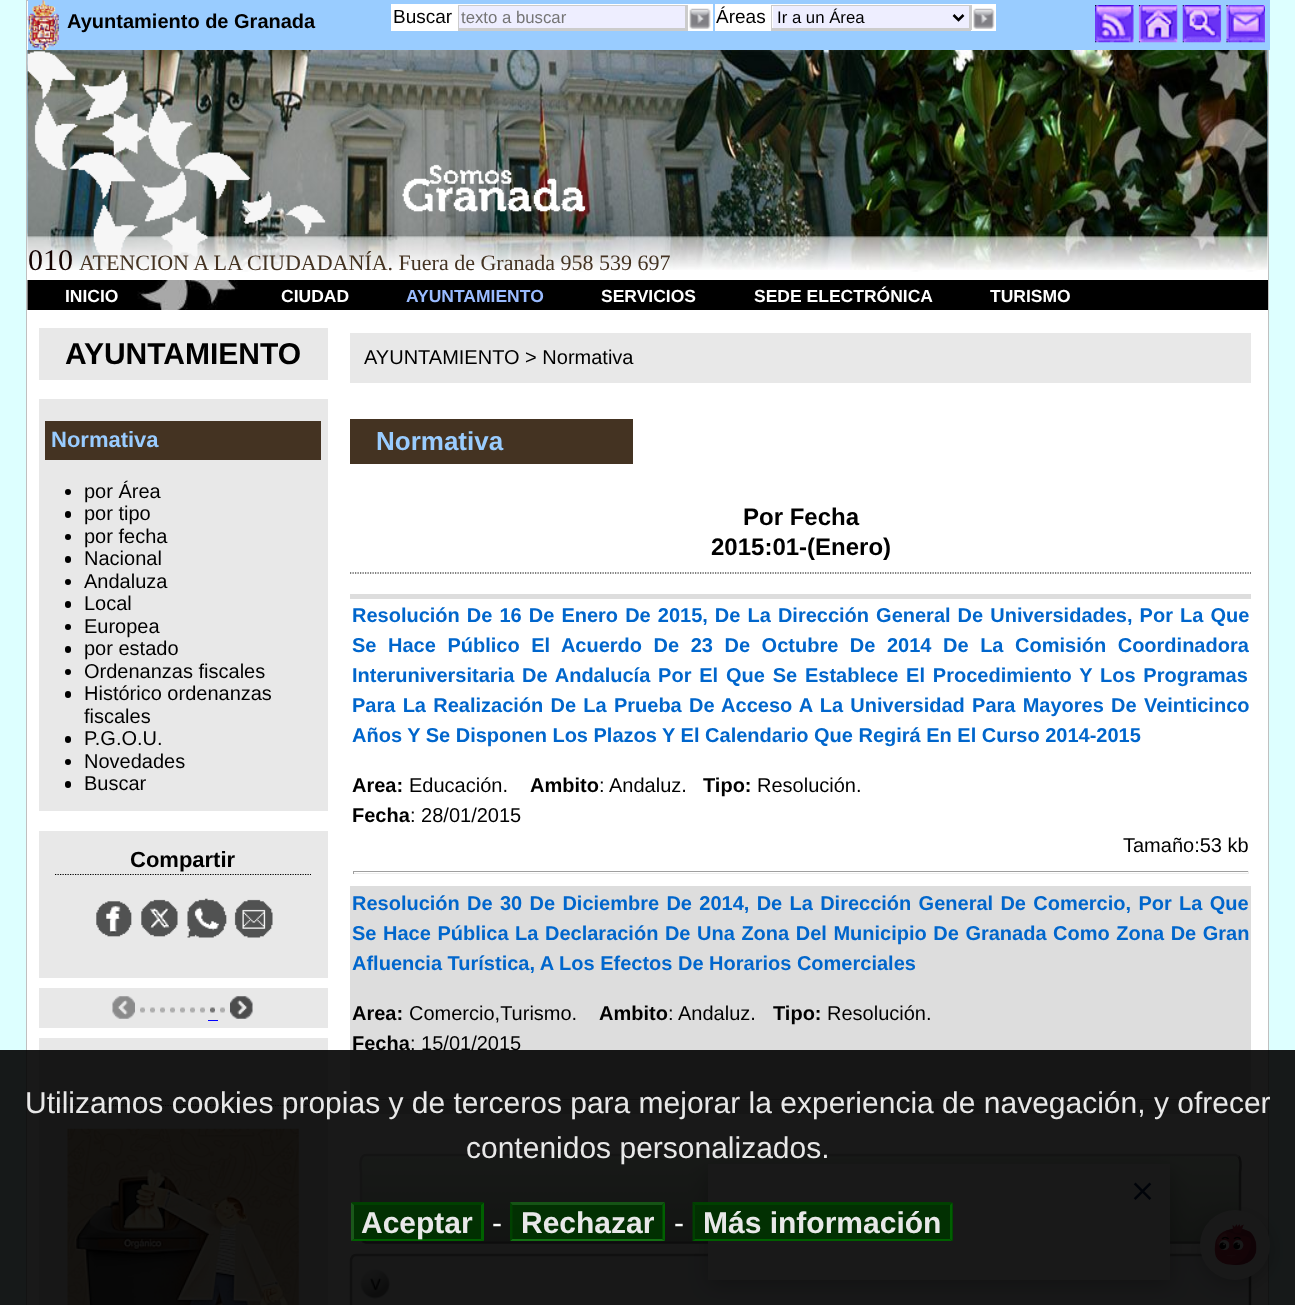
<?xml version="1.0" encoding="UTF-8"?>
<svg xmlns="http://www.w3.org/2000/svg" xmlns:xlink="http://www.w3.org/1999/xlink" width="1295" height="1305">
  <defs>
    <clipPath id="clip1"><rect x="360" y="1154" width="881" height="90" rx="6" /></clipPath>
    <linearGradient id="g1" gradientUnits="userSpaceOnUse" x1="801" y1="1156" x2="801" y2="1241"><stop offset="0" stop-color="#eeffee" /><stop offset="1" stop-color="#bbccbb" /></linearGradient>
    <linearGradient id="g2" gradientUnits="userSpaceOnUse" x1="801" y1="1241" x2="801" y2="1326"><stop offset="0" stop-color="#eeffee" /><stop offset="1" stop-color="#bbccbb" /></linearGradient>
  </defs>
  <rect width="100%" height="100%" fill="#ddffff" />
  <rect x="26.5" y="0.5" width="1242" height="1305" fill="#ffffff" stroke="#c0c0c0" />
  <rect x="28" width="1242" height="50" fill="#99ccff" />
  <image x="27" y="0" width="32" height="50" xlink:href="image1.png" />
  <rect x="391" y="4" width="322" height="27" fill="#ffffff" />
  <rect x="459" y="6" width="226" height="22" fill="#eeeeff" />
  <rect x="458" y="5" width="230" height="1" fill="#cccccc" />
  <rect x="685" y="5" width="3" height="25" fill="#cccccc" />
  <rect x="458" y="28" width="230" height="3" fill="#cccccc" />
  <rect x="458" y="5" width="1" height="25" fill="#cccccc" />
  <image x="689" y="8" width="22" height="21" xlink:href="image2.png" />
  <rect x="715" y="4" width="281" height="27" fill="#ffffff" />
  <rect x="773" y="6" width="196" height="22" fill="#eeeeff" />
  <rect x="771" y="5" width="200" height="1" fill="#cccccc" />
  <rect x="969" y="5" width="3" height="25" fill="#cccccc" />
  <rect x="771" y="28" width="200" height="3" fill="#cccccc" />
  <rect x="771" y="5" width="1" height="25" fill="#cccccc" />
  <path d="M 953.5 15 l 5 5 l 5 -5" fill="none" stroke="#000000" stroke-width="2.5" />
  <image x="973" y="8" width="22" height="21" xlink:href="image3.png" />
  <image x="1095" y="5" width="39" height="38" xlink:href="image4.png" />
  <image x="1138" y="5" width="40" height="38" xlink:href="image5.png" />
  <image x="1182" y="5" width="40" height="38" xlink:href="image6.png" />
  <image x="1226" y="5" width="39" height="38" xlink:href="image7.png" />
  <image x="27" y="50" width="1241" height="222" xlink:href="image8.png" />
  <image x="27" y="50" width="1241" height="220" xlink:href="image9.png" />
  <image x="27" y="51" width="299" height="220" xlink:href="image10.png" />
  <image x="402" y="164" width="184" height="48" xlink:href="image11.png" />
  <rect x="238" y="280" width="1030" height="30" fill="#000000" />
  <image x="27" y="280" width="211" height="30" xlink:href="image12.png" />
  <rect x="39" y="328" width="289" height="52" fill="#e8e8e8" />
  <rect x="39" y="399" width="289" height="412" fill="#e8e8e8" />
  <rect x="45" y="421" width="276" height="39" fill="#443322" />
  <circle cx="68" cy="492" r="3" fill="#000000" />
  <rect x="65" y="511" width="6" height="7" rx="3" fill="#000000" />
  <circle cx="68" cy="537" r="3" fill="#000000" />
  <rect x="65" y="556" width="6" height="7" rx="3" fill="#000000" />
  <circle cx="68" cy="582" r="3" fill="#000000" />
  <rect x="65" y="601" width="6" height="7" rx="3" fill="#000000" />
  <circle cx="68" cy="627" r="3" fill="#000000" />
  <rect x="65" y="646" width="6" height="7" rx="3" fill="#000000" />
  <circle cx="68" cy="672" r="3" fill="#000000" />
  <rect x="65" y="691" width="6" height="7" rx="3" fill="#000000" />
  <rect x="65" y="736" width="6" height="7" rx="3" fill="#000000" />
  <circle cx="68" cy="762" r="3" fill="#000000" />
  <rect x="65" y="781" width="6" height="7" rx="3" fill="#000000" />
  <rect x="39" y="831" width="289" height="147" fill="#e8e8e8" />
  <path d="M 55 874.5 h 256" fill="none" stroke="#000000" stroke-width="1.2" stroke-dasharray="1.25 1.25" />
  <image x="96" y="901" width="36" height="36" xlink:href="image13.png" />
  <image x="141" y="899" width="37" height="38" xlink:href="image14.png" />
  <image x="187" y="898" width="40" height="40" xlink:href="image15.png" />
  <image x="234" y="899" width="39" height="39" xlink:href="image16.png" />
  <rect x="39" y="988" width="289" height="40" fill="#e8e8e8" />
  <image x="112" y="996" width="23" height="23" xlink:href="image17.png" />
  <image x="140" y="1007" width="5" height="6" xlink:href="image18.png" />
  <image x="150" y="1007" width="5" height="6" xlink:href="image18.png" />
  <image x="160" y="1007" width="5" height="6" xlink:href="image18.png" />
  <image x="170" y="1007" width="5" height="6" xlink:href="image18.png" />
  <image x="180" y="1007" width="5" height="6" xlink:href="image18.png" />
  <image x="190" y="1007" width="5" height="6" xlink:href="image18.png" />
  <image x="200" y="1007" width="5" height="6" xlink:href="image18.png" />
  <image x="210" y="1007" width="5" height="6" xlink:href="image19.png" />
  <image x="220" y="1007" width="5" height="6" xlink:href="image18.png" />
  <image x="230" y="996" width="23" height="23" xlink:href="image20.png" />
  <rect x="208" y="1020" width="10" height="1" fill="#0000ff" />
  <rect x="39" y="1038" width="289" height="267" fill="#e8e8e8" />
  <path d="M 55 1105.5 h 256" fill="none" stroke="#000000" stroke-width="1.2" stroke-dasharray="1.25 1.25" />
  <image x="67" y="1128" width="232" height="177" xlink:href="image21.png" />
  <rect x="350" y="333" width="901" height="50" fill="#e8e8e8" />
  <rect x="350" y="419" width="283" height="45" fill="#443322" />
  <path d="M 350 573 h 901" fill="none" stroke="#000000" stroke-width="1.2" stroke-dasharray="1.25 1.25" />
  <rect x="350" y="594" width="901" height="5" fill="#dddddd" />
  <rect x="353" y="871" width="896" height="1" fill="#9f9f9f" />
  <rect x="1248" y="871" width="1" height="3" fill="#eeeeee" />
  <rect x="353" y="873" width="896" height="1" fill="#eeeeee" />
  <rect x="353" y="871" width="1" height="3" fill="#9f9f9f" />
  <rect x="350" y="886" width="901" height="228" fill="#dddddd" />
  <rect x="353" y="1099" width="896" height="1" fill="#9f9f9f" />
  <rect x="1248" y="1099" width="1" height="3" fill="#eeeeee" />
  <rect x="353" y="1100" width="896" height="1" fill="#eeeeee" />
  <rect x="353" y="1099" width="1" height="3" fill="#9f9f9f" />
  <g clip-path="url(#clip1)">
    <rect x="360" y="1156" width="881" height="85" fill="url(#g1)" />
    <rect x="360" y="1241" width="841" height="3" fill="url(#g2)" />
  </g>
  <path d="M 1238.5 1156.5 c 3.5 3.5 1.5 15.5 1.5 16.5 v 51.5 c 0 2.5 3 18 -5 18 h -869 l -3.5 -1.5" fill="none" stroke="#888888" stroke-width="2.5" />
  <path d="M 362.5 1241 c -3.5 -3.5 -1.5 -15.5 -1.5 -16.5 v -51.5 c 0 -2.5 -3 -18 5 -18 h 869.5 l 3 1.5" fill="none" stroke="#cccccc" stroke-width="2.5" />
  <rect x="350" y="1254" width="901" height="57" rx="6" fill="#edf0f5" />
  <path d="M 1248.5 1256.5 c 1 1 1.5 2 1.5 3.5 v 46 c 0 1.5 -0.5 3 -1.5 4 c -1 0.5 -2 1 -3.5 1 h -889 c -1 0 -2.5 -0.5 -3.5 -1" fill="none" stroke="#6b6b6b" stroke-width="2.5" />
  <path d="M 352.5 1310 c -0.5 -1 -1.5 -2.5 -1.5 -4 v -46 c 0 -1.5 1 -2.5 1.5 -3.5 c 1 -1 2.5 -1.5 3.5 -1.5 h 889 c 1.5 0 2.5 0.5 3.5 1.5" fill="none" stroke="#a0a0a0" stroke-width="2.5" />
  <image x="360" y="1269" width="30" height="30" xlink:href="image22.png" />
  <rect x="709" y="1169" width="462" height="116" rx="5" fill="#000000" fill-opacity="0.24" filter="blur(9.5px)" />
  <rect x="708" y="1164" width="462" height="116" fill="#fafafa" />
  <rect x="720" y="1176" width="383" height="92" rx="15" fill="#f7f7f7" />
  <image x="1133" y="1182" width="19" height="18" xlink:href="image23.png" />
  <rect x="1201" y="1215" width="70" height="70" rx="35" fill="#000000" fill-opacity="0.24" filter="blur(9.5px)" />
  <circle cx="1235" cy="1245" r="35" fill="#ffffff" />
  <image x="1214" y="1224" width="43" height="42" xlink:href="image24.png" />
  <text x="67" y="28" style="font-family: Liberation Sans; font-size: 20px; font-weight: bold; fill: #000000">Ayuntamiento de Granada</text>
  <text x="393" y="23" style="font-family: Liberation Sans; font-size: 19px; fill: #000000">Buscar</text>
  <text x="461" y="23" style="font-family: Liberation Sans; font-size: 16.75px; fill: #757575">texto a buscar</text>
  <text x="716" y="23" style="font-family: Liberation Sans; font-size: 19px; fill: #000000">Áreas</text>
  <text x="777" y="23" style="font-family: Liberation Sans; font-size: 16.75px; fill: #000000">Ir a un Área</text>
  <text x="28" y="270" style="font-family: Liberation Serif; font-size: 30px; fill: #140200">010</text>
  <text x="79" y="270" style="font-family: Liberation Serif; font-size: 22px; fill: #443322">ATENCION A LA CIUDADANÍA. Fuera de Granada 958 539 697</text>
  <text x="65" y="302" style="font-family: Liberation Sans; font-size: 17.5px; font-weight: bold; fill: #ffffff">INICIO</text>
  <text x="281" y="302" style="font-family: Liberation Sans; font-size: 17.5px; font-weight: bold; fill: #ffffff">CIUDAD</text>
  <text x="406" y="302" style="font-family: Liberation Sans; font-size: 17.5px; font-weight: bold; fill: #99bbff">AYUNTAMIENTO</text>
  <text x="601" y="302" style="font-family: Liberation Sans; font-size: 17.5px; font-weight: bold; fill: #ffffff">SERVICIOS</text>
  <text x="754" y="302" style="font-family: Liberation Sans; font-size: 17.5px; font-weight: bold; fill: #ffffff">SEDE ELECTRÓNICA</text>
  <text x="990" y="302" style="font-family: Liberation Sans; font-size: 17.5px; font-weight: bold; fill: #ffffff">TURISMO</text>
  <text x="65" y="364" style="font-family: Liberation Sans; font-size: 30px; font-weight: bold; fill: #000000">AYUNTAMIENTO</text>
  <text x="51" y="447" style="font-family: Liberation Sans; font-size: 22px; font-weight: bold; fill: #99ccff">Normativa</text>
  <text x="84" y="498" style="font-family: Liberation Sans; font-size: 20px; fill: #000000">por Área</text>
  <text x="84" y="520" style="font-family: Liberation Sans; font-size: 20px; fill: #000000">por tipo</text>
  <text x="84" y="543" style="font-family: Liberation Sans; font-size: 20px; fill: #000000">por fecha</text>
  <text x="84" y="565" style="font-family: Liberation Sans; font-size: 20px; fill: #000000">Nacional</text>
  <text x="84" y="588" style="font-family: Liberation Sans; font-size: 20px; fill: #000000">Andaluza</text>
  <text x="84" y="610" style="font-family: Liberation Sans; font-size: 20px; fill: #000000">Local</text>
  <text x="84" y="633" style="font-family: Liberation Sans; font-size: 20px; fill: #000000">Europea</text>
  <text x="84" y="655" style="font-family: Liberation Sans; font-size: 20px; fill: #000000">por estado</text>
  <text x="84" y="678" style="font-family: Liberation Sans; font-size: 20px; fill: #000000">Ordenanzas fiscales</text>
  <text x="84" y="700" style="font-family: Liberation Sans; font-size: 20px; fill: #000000">Histórico ordenanzas</text>
  <text x="84" y="723" style="font-family: Liberation Sans; font-size: 20px; fill: #000000">fiscales</text>
  <text x="84" y="745" style="font-family: Liberation Sans; font-size: 20px; fill: #000000">P.G.O.U.</text>
  <text x="84" y="768" style="font-family: Liberation Sans; font-size: 20px; fill: #000000">Novedades</text>
  <text x="84" y="790" style="font-family: Liberation Sans; font-size: 20px; fill: #000000">Buscar</text>
  <text x="130" y="867" style="font-family: Liberation Sans; font-size: 22px; font-weight: bold; fill: #000000">Compartir</text>
  <text x="364" y="364" style="font-family: Liberation Sans; font-size: 20px; fill: #000000">AYUNTAMIENTO &gt; Normativa</text>
  <text x="376" y="450" style="font-family: Liberation Sans; font-size: 26px; font-weight: bold; fill: #99ccff">Normativa</text>
  <text x="743" y="525" style="font-family: Liberation Sans; font-size: 24px; font-weight: bold; fill: #000000">Por Fecha</text>
  <text x="711" y="555" style="font-family: Liberation Sans; font-size: 24px; font-weight: bold; fill: #000000">2015:01-(Enero)</text>
  <text x="352" y="622" word-spacing="1.5" style="font-family: Liberation Sans; font-size: 20px; font-weight: bold; fill: #0066cc">Resolución De 16 De Enero De 2015, De La Dirección General De Universidades, Por La Que</text>
  <text x="352" y="652" word-spacing="6" style="font-family: Liberation Sans; font-size: 20px; font-weight: bold; fill: #0066cc">Se Hace Público El Acuerdo De 23 De Octubre De 2014 De La Comisión Coordinadora</text>
  <text x="352" y="682" word-spacing="2.25" style="font-family: Liberation Sans; font-size: 20px; font-weight: bold; fill: #0066cc">Interuniversitaria De Andalucía Por El Que Se Establece El Procedimiento Y Los Programas</text>
  <text x="352" y="712" word-spacing="1.7" style="font-family: Liberation Sans; font-size: 20px; font-weight: bold; fill: #0066cc">Para La Realización De La Prueba De Acceso A La Universidad Para Mayores De Veinticinco</text>
  <text x="352" y="742" style="font-family: Liberation Sans; font-size: 20px; font-weight: bold; fill: #0066cc">Años Y Se Disponen Los Plazos Y El Calendario Que Regirá En El Curso 2014-2015</text>
  <text x="352" y="792" style="font-family: Liberation Sans; font-size: 20px; font-weight: bold; fill: #000000">Area:</text>
  <text x="409" y="792" style="font-family: Liberation Sans; font-size: 20px; fill: #000000">Educación.</text>
  <text x="530" y="792" style="font-family: Liberation Sans; font-size: 20px; font-weight: bold; fill: #000000">Ambito</text>
  <text x="599" y="792" style="font-family: Liberation Sans; font-size: 20px; fill: #000000">: Andaluz.</text>
  <text x="703" y="792" style="font-family: Liberation Sans; font-size: 20px; font-weight: bold; fill: #000000">Tipo:</text>
  <text x="757" y="792" style="font-family: Liberation Sans; font-size: 20px; fill: #000000">Resolución.</text>
  <text x="352" y="822" style="font-family: Liberation Sans; font-size: 20px; font-weight: bold; fill: #000000">Fecha</text>
  <text x="410" y="822" style="font-family: Liberation Sans; font-size: 20px; fill: #000000">: 28/01/2015</text>
  <text x="1123" y="852" style="font-family: Liberation Sans; font-size: 20px; fill: #000000">Tamaño:53 kb</text>
  <text x="352" y="910" word-spacing="1.75" style="font-family: Liberation Sans; font-size: 20px; font-weight: bold; fill: #0066cc">Resolución De 30 De Diciembre De 2014, De La Dirección General De Comercio, Por La Que</text>
  <text x="352" y="940" word-spacing="1" style="font-family: Liberation Sans; font-size: 20px; font-weight: bold; fill: #0066cc">Se Hace Pública La Declaración De Una Zona Del Municipio De Granada Como Zona De Gran</text>
  <text x="352" y="970" style="font-family: Liberation Sans; font-size: 20px; font-weight: bold; fill: #0066cc">Afluencia Turística, A Los Efectos De Horarios Comerciales</text>
  <text x="352" y="1020" style="font-family: Liberation Sans; font-size: 20px; font-weight: bold; fill: #000000">Area:</text>
  <text x="409" y="1020" style="font-family: Liberation Sans; font-size: 20px; fill: #000000">Comercio,Turismo.</text>
  <text x="599" y="1020" style="font-family: Liberation Sans; font-size: 20px; font-weight: bold; fill: #000000">Ambito</text>
  <text x="668" y="1020" style="font-family: Liberation Sans; font-size: 20px; fill: #000000">: Andaluz.</text>
  <text x="773" y="1020" style="font-family: Liberation Sans; font-size: 20px; font-weight: bold; fill: #000000">Tipo:</text>
  <text x="827" y="1020" style="font-family: Liberation Sans; font-size: 20px; fill: #000000">Resolución.</text>
  <text x="352" y="1050" style="font-family: Liberation Sans; font-size: 20px; font-weight: bold; fill: #000000">Fecha</text>
  <text x="410" y="1050" style="font-family: Liberation Sans; font-size: 20px; fill: #000000">: 15/01/2015</text>
  <rect y="1050" width="1295" height="255" fill="#000000" fill-opacity="0.9" />
  <text x="25" y="1113" style="font-family: Liberation Sans; font-size: 30px; fill: #e8e8e8">Utilizamos cookies propias y de terceros para mejorar la experiencia de navegación, y ofrecer</text>
  <text x="466" y="1158" style="font-family: Liberation Sans; font-size: 30px; fill: #e8e8e8">contenidos personalizados.</text>
  <rect x="351" y="1203" width="133" height="38" fill="#003300" fill-opacity="0.9" />
  <path d="M 351 1202 h 133 l -3 3 h -127 z" fill="#004400" fill-opacity="0.9" />
  <path d="M 484 1202.5 v 38.5 l -3 -2 v -34 z" fill="#006100" />
  <path d="M 484 1241 h -133 l 3 -2 h 127 z" fill="#006600" fill-opacity="0.9" />
  <text x="361" y="1233" style="font-family: Liberation Sans; font-size: 30px; font-weight: bold; fill: #e8e8e8">Aceptar</text>
  <path d="M 351 1241 v -38.5 l 3 2.5 v 34 z" fill="#1a571a" />
  <text x="492" y="1233" style="font-family: Liberation Sans; font-size: 30px; fill: #f9fbf9">-</text>
  <rect x="510" y="1203" width="155" height="38" fill="#003300" fill-opacity="0.9" />
  <text x="521" y="1233" style="font-family: Liberation Sans; font-size: 30px; font-weight: bold; fill: #e8e8e8">Rechazar</text>
  <path d="M 510 1202 h 155 l -3 3 h -150 z" fill="#155415" />
  <path d="M 665 1202.5 v 38.5 l -2.5 -2 v -34 z" fill="#006100" />
  <path d="M 665 1241 h -155 l 2 -2 h 150 z" fill="#137013" />
  <path d="M 510 1241 v -38.5 l 2.5 2.5 v 34 z" fill="#004400" fill-opacity="0.9" />
  <text x="674" y="1233" style="font-family: Liberation Sans; font-size: 30px; fill: #f9fbf9">-</text>
  <rect x="693" y="1203" width="260" height="38" fill="#003300" fill-opacity="0.9" />
  <text x="703" y="1233" style="font-family: Liberation Sans; font-size: 30px; font-weight: bold; fill: #e8e8e8">Más información</text>
  <path d="M 692 1202 h 260 l -2 3 h -255 z" fill="#004400" fill-opacity="0.9" />
  <path d="M 952.5 1202.5 v 38.5 l -2.5 -2 v -34 z" fill="#006600" fill-opacity="0.9" />
  <path d="M 952 1241 h -260 l 3 -2 h 255 z" fill="#006600" fill-opacity="0.9" />
  <path d="M 692.5 1241 v -38.5 l 2.5 2.5 v 34 z" fill="#004400" fill-opacity="0.9" />
</svg>
